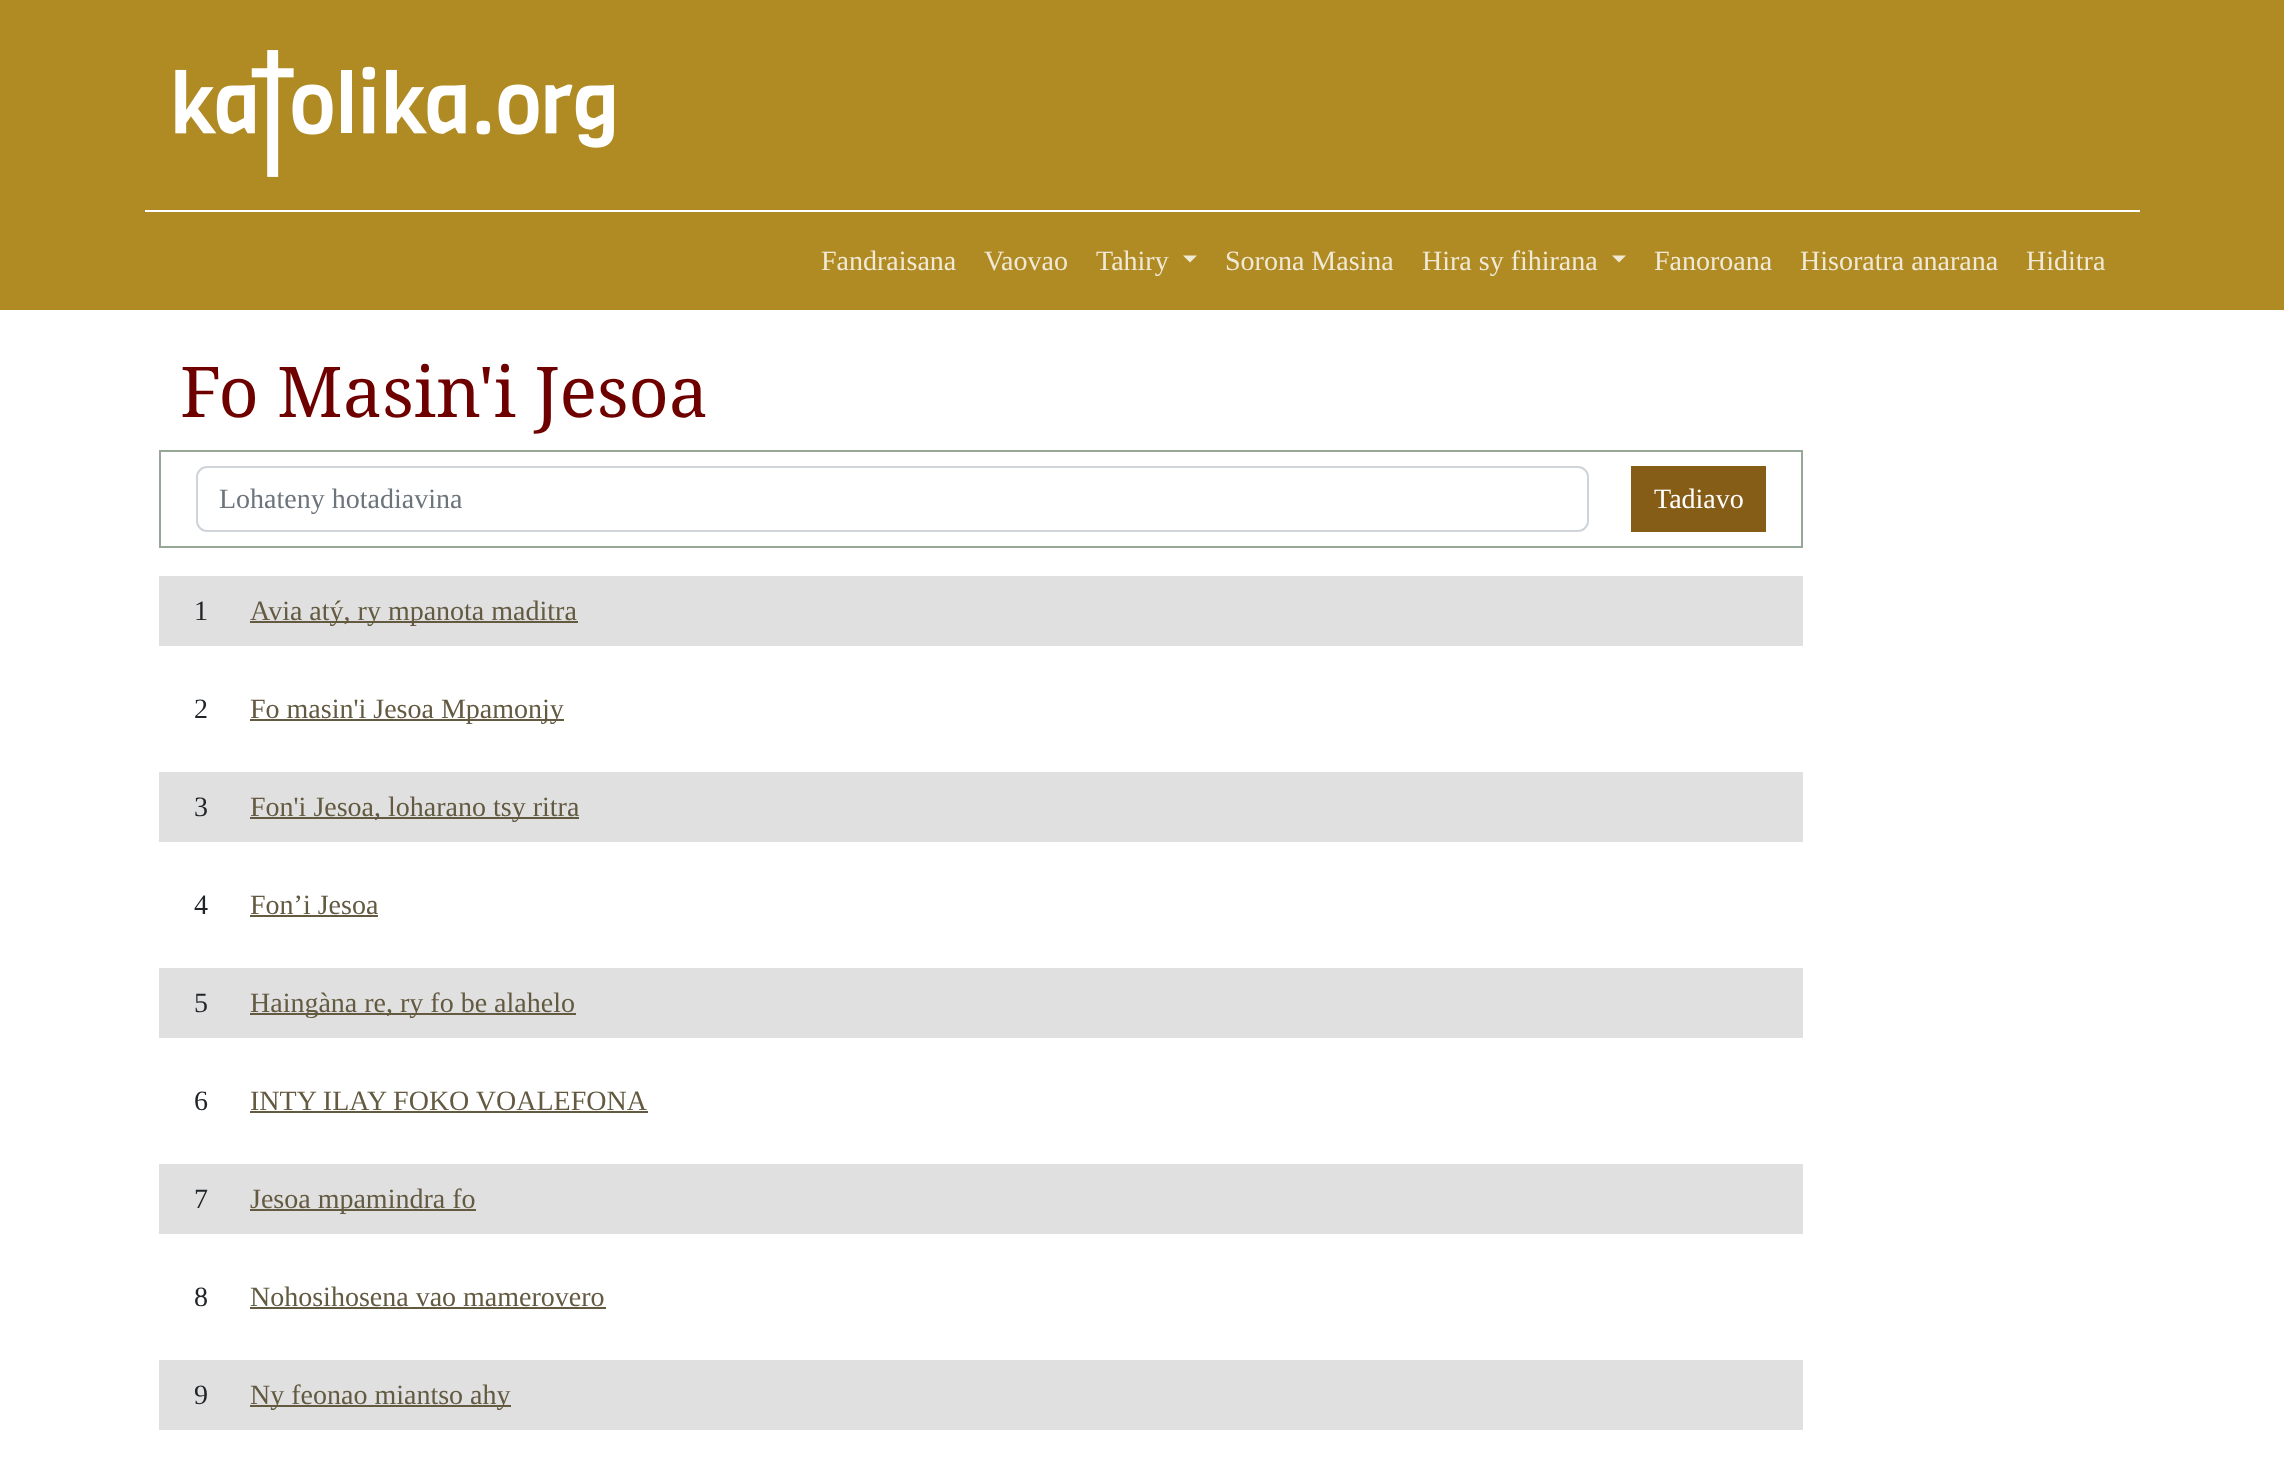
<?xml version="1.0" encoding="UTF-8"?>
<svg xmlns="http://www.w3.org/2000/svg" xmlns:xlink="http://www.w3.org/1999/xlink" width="2284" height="1475">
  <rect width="100%" height="100%" fill="#ffffff" />
  <rect width="2284" height="310" fill="#b08a22" />
  <rect x="145" y="210" width="1995" height="2" fill="#ffffff" />
  <image x="175" y="50" width="439" height="127" xlink:href="image1.png" />
  <path d="M 1183 255.5 h 14 l -7 7 z" fill="#f0e9d5" />
  <path d="M 1612 255.5 h 14 l -7 7 z" fill="#f0e9d5" />
  <rect x="160" y="451" width="1642" height="96" fill="none" stroke="#97a797" stroke-width="2" />
  <rect x="197" y="467" width="1391" height="64" rx="10" fill="none" stroke="#ced4da" stroke-width="2" />
  <rect x="1631" y="466" width="135" height="66" fill="#865d16" />
  <rect x="159" y="576" width="1644" height="70" fill="#e0e0e0" />
  <rect x="250" y="621" width="328" height="2" fill="#635a41" />
  <rect x="250" y="719" width="314" height="2" fill="#635a41" />
  <rect x="159" y="772" width="1644" height="70" fill="#e0e0e0" />
  <rect x="250" y="817" width="329" height="2" fill="#635a41" />
  <rect x="250" y="915" width="128" height="2" fill="#635a41" />
  <rect x="159" y="968" width="1644" height="70" fill="#e0e0e0" />
  <rect x="250" y="1013" width="326" height="2" fill="#635a41" />
  <rect x="250" y="1111" width="398" height="2" fill="#635a41" />
  <rect x="159" y="1164" width="1644" height="70" fill="#e0e0e0" />
  <rect x="250" y="1209" width="226" height="2" fill="#635a41" />
  <rect x="250" y="1307" width="356" height="2" fill="#635a41" />
  <rect x="159" y="1360" width="1644" height="70" fill="#e0e0e0" />
  <rect x="250" y="1405" width="261" height="2" fill="#635a41" />
  <text x="821" y="270" style="font-family: Liberation Serif; font-size: 28px; fill: #f0e9d5">Fandraisana</text>
  <text x="984" y="270" style="font-family: Liberation Serif; font-size: 28px; fill: #f0e9d5">Vaovao</text>
  <text x="1096" y="270" style="font-family: Liberation Serif; font-size: 28px; fill: #f0e9d5">Tahiry</text>
  <text x="1225" y="270" style="font-family: Liberation Serif; font-size: 28px; fill: #f0e9d5">Sorona Masina</text>
  <text x="1422" y="270" style="font-family: Liberation Serif; font-size: 28px; fill: #f0e9d5">Hira sy fihirana</text>
  <text x="1654" y="270" style="font-family: Liberation Serif; font-size: 28px; fill: #f0e9d5">Fanoroana</text>
  <text x="1800" y="270" style="font-family: Liberation Serif; font-size: 28px; fill: #f0e9d5">Hisoratra anarana</text>
  <text x="2026" y="270" style="font-family: Liberation Serif; font-size: 28px; fill: #f0e9d5">Hiditra</text>
  <text x="180" y="417" style="font-family: Droid Serif; font-size: 70px; fill: #6f0000">Fo Masin'i Jesoa</text>
  <text x="219" y="508" style="font-family: Liberation Serif; font-size: 28px; fill: #6c757d">Lohateny hotadiavina</text>
  <text x="1654" y="508" style="font-family: Liberation Serif; font-size: 28px; fill: #ffffff">Tadiavo</text>
  <text x="194" y="620" style="font-family: Liberation Serif; font-size: 28px; fill: #212529">1</text>
  <text x="250" y="620" style="font-family: Liberation Serif; font-size: 28px; fill: #635a41">Avia atý, ry mpanota maditra</text>
  <text x="194" y="718" style="font-family: Liberation Serif; font-size: 28px; fill: #212529">2</text>
  <text x="250" y="718" style="font-family: Liberation Serif; font-size: 28px; fill: #635a41">Fo masin'i Jesoa Mpamonjy</text>
  <text x="194" y="816" style="font-family: Liberation Serif; font-size: 28px; fill: #212529">3</text>
  <text x="250" y="816" style="font-family: Liberation Serif; font-size: 28px; fill: #635a41">Fon'i Jesoa, loharano tsy ritra</text>
  <text x="194" y="914" style="font-family: Liberation Serif; font-size: 28px; fill: #212529">4</text>
  <text x="250" y="914" style="font-family: Liberation Serif; font-size: 28px; fill: #635a41">Fon’i Jesoa</text>
  <text x="194" y="1012" style="font-family: Liberation Serif; font-size: 28px; fill: #212529">5</text>
  <text x="250" y="1012" style="font-family: Liberation Serif; font-size: 28px; fill: #635a41">Haingàna re, ry fo be alahelo</text>
  <text x="194" y="1110" style="font-family: Liberation Serif; font-size: 28px; fill: #212529">6</text>
  <text x="250" y="1110" style="font-family: Liberation Serif; font-size: 28px; fill: #635a41">INTY ILAY FOKO VOALEFONA</text>
  <text x="194" y="1208" style="font-family: Liberation Serif; font-size: 28px; fill: #212529">7</text>
  <text x="250" y="1208" style="font-family: Liberation Serif; font-size: 28px; fill: #635a41">Jesoa mpamindra fo</text>
  <text x="194" y="1306" style="font-family: Liberation Serif; font-size: 28px; fill: #212529">8</text>
  <text x="250" y="1306" style="font-family: Liberation Serif; font-size: 28px; fill: #635a41">Nohosihosena vao mamerovero</text>
  <text x="194" y="1404" style="font-family: Liberation Serif; font-size: 28px; fill: #212529">9</text>
  <text x="250" y="1404" style="font-family: Liberation Serif; font-size: 28px; fill: #635a41">Ny feonao miantso ahy</text>
</svg>
